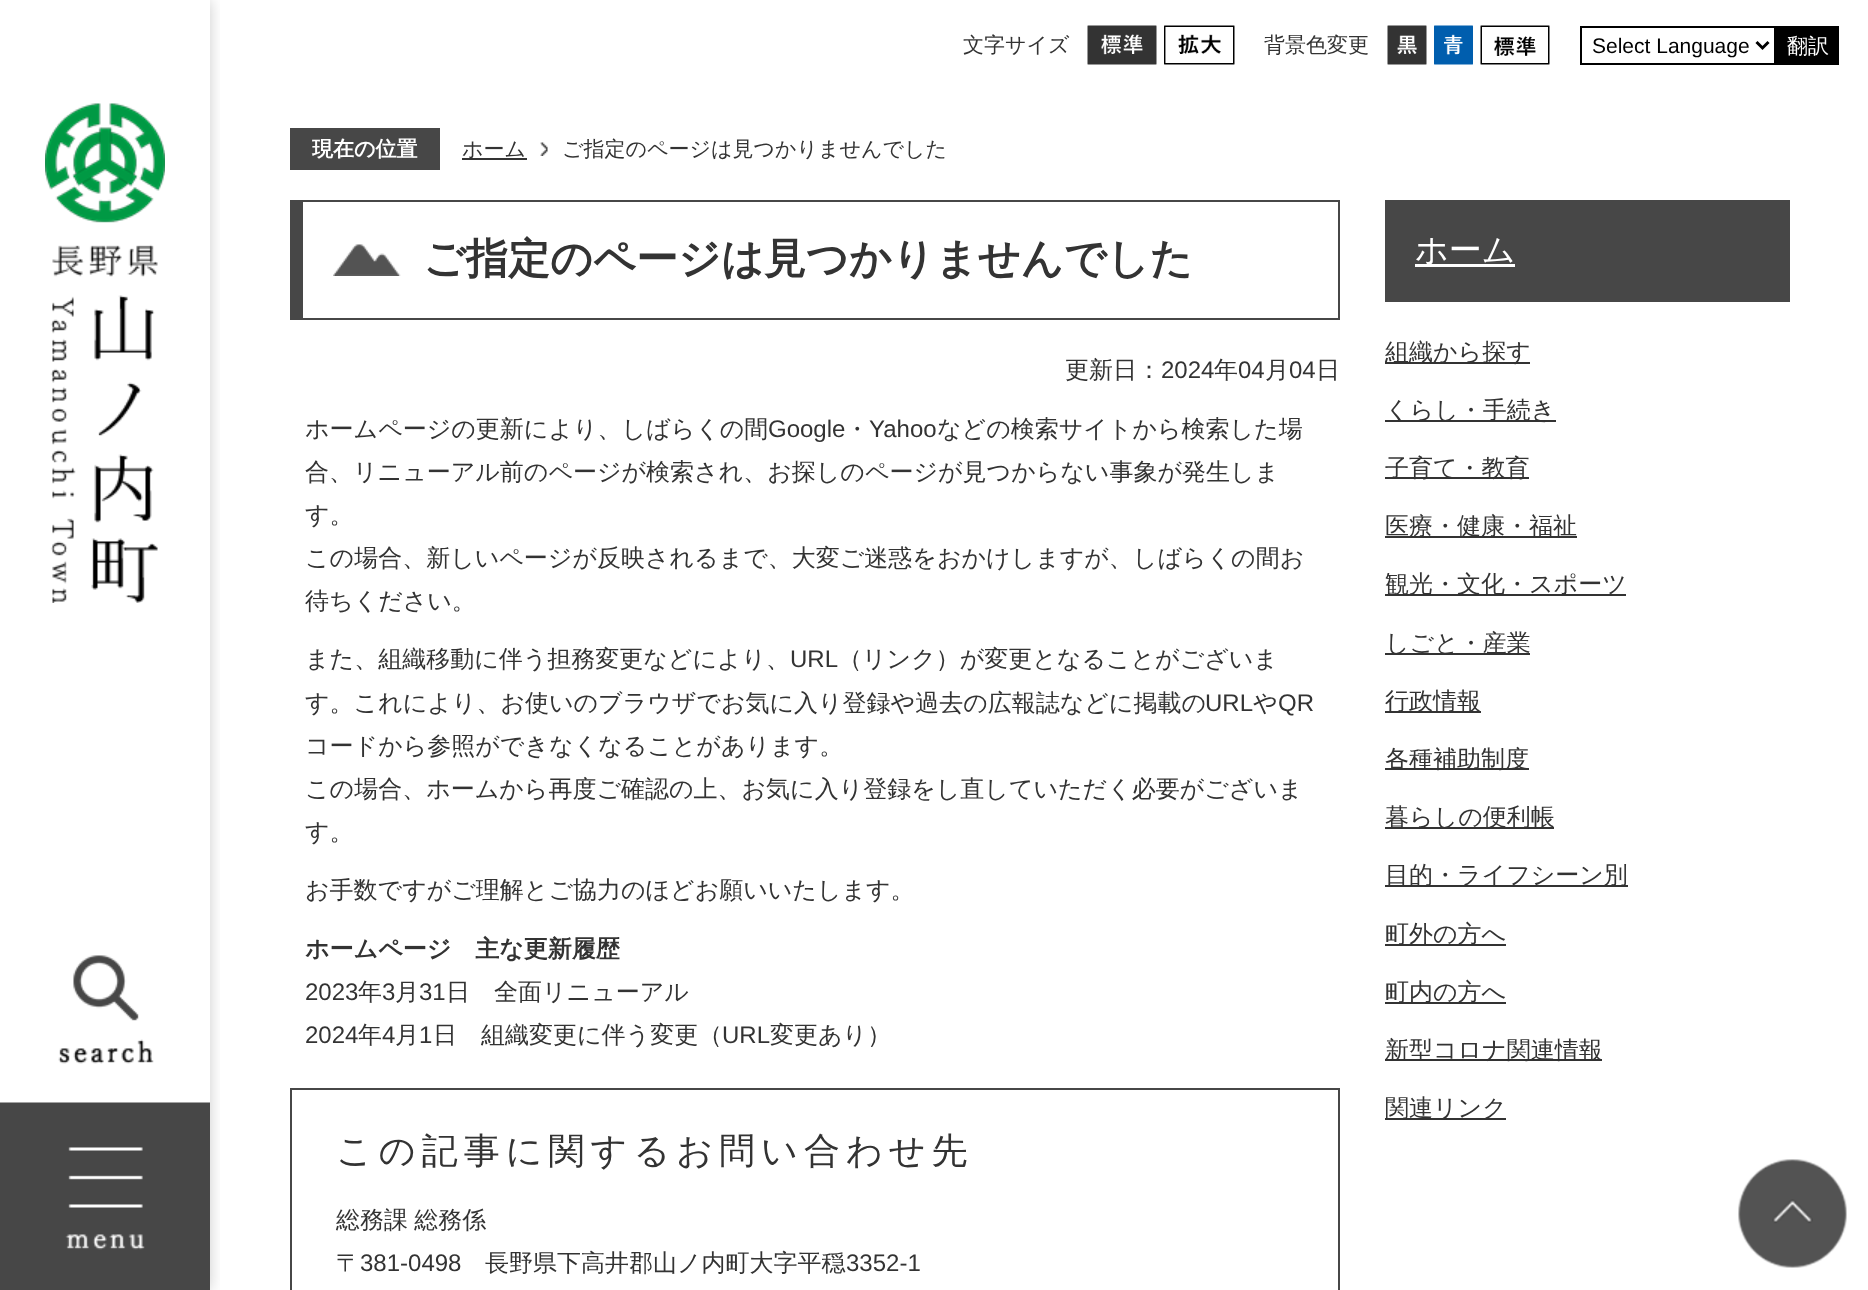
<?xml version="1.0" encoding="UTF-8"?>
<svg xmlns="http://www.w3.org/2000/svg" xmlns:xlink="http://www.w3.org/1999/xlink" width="1868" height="1290">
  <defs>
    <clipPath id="clip1"><rect x="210" y="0" width="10" height="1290" /></clipPath>
  </defs>
  <rect width="100%" height="100%" fill="#ffffff" />
  <g clip-path="url(#clip1)">
    <rect width="210" height="1290" fill="#000000" fill-opacity="0.2" filter="blur(7.5px)" />
  </g>
  <image x="45" y="103" width="120" height="500" xlink:href="image1.png" />
  <image x="58" y="955" width="96" height="109" xlink:href="image2.png" />
  <image x="0" y="1102" width="210" height="188" xlink:href="image3.png" />
  <image x="1087" y="25" width="70" height="40" xlink:href="image4.png" />
  <image x="1164" y="25" width="71" height="40" xlink:href="image5.png" />
  <image x="1387" y="25" width="40" height="40" xlink:href="image6.png" />
  <image x="1434" y="25" width="39" height="40" xlink:href="image7.png" />
  <image x="1480" y="25" width="70" height="40" xlink:href="image8.png" />
  <rect x="1581" y="27" width="194" height="37" fill="none" stroke="#000000" stroke-width="2" />
  <path d="M 1756.5 42 l 6 6 l 6 -6" fill="none" stroke="#000000" stroke-width="3" />
  <rect x="1776" y="26" width="63" height="39" fill="#000000" />
  <rect x="290" y="128" width="150" height="42" fill="#474747" />
  <rect x="462" y="158" width="65" height="2" fill="#333333" />
  <image x="540" y="142" width="8" height="14" xlink:href="image9.png" />
  <rect x="291" y="201" width="1048" height="118" fill="none" stroke="#474747" stroke-width="2" />
  <image x="333" y="244" width="68" height="32" xlink:href="image10.png" />
  <rect x="292" y="202" width="11" height="116" fill="#474747" />
  <rect x="291" y="1089" width="1048" height="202" fill="none" stroke="#474747" stroke-width="2" />
  <rect x="1385" y="200" width="405" height="102" fill="#474747" />
  <rect x="1415" y="264" width="100" height="3" fill="#ffffff" />
  <rect x="1385" y="362" width="145" height="2" fill="#333333" />
  <rect x="1385" y="420" width="171" height="2" fill="#333333" />
  <rect x="1385" y="477" width="144" height="2" fill="#333333" />
  <rect x="1385" y="536" width="192" height="2" fill="#333333" />
  <rect x="1385" y="594" width="241" height="2" fill="#333333" />
  <rect x="1385" y="653" width="145" height="2" fill="#333333" />
  <rect x="1385" y="711" width="96" height="2" fill="#333333" />
  <rect x="1385" y="768" width="144" height="2" fill="#333333" />
  <rect x="1385" y="827" width="169" height="2" fill="#333333" />
  <rect x="1385" y="885" width="243" height="2" fill="#333333" />
  <rect x="1385" y="944" width="121" height="2" fill="#333333" />
  <rect x="1385" y="1002" width="121" height="2" fill="#333333" />
  <rect x="1385" y="1059" width="217" height="2" fill="#333333" />
  <rect x="1385" y="1118" width="121" height="2" fill="#333333" />
  <image x="1738" y="1159" width="109" height="109" xlink:href="image11.png" />
  <text x="963" y="52" style="font-family: WenQuanYi Zen Hei; font-size: 21px; font-weight: 500; fill: #333333">文字サイズ</text>
  <text x="1264" y="52" style="font-family: WenQuanYi Zen Hei; font-size: 21px; font-weight: 500; fill: #333333">背景色変更</text>
  <text x="1592" y="53" style="font-family: Liberation Sans; font-size: 21px; fill: #000000">Select Language</text>
  <text x="1787" y="53" style="font-family: WenQuanYi Zen Hei; font-size: 21px; font-weight: 500; fill: #ffffff">翻訳</text>
  <text x="312" y="156" style="font-family: WenQuanYi Zen Hei; font-size: 21px; font-weight: bold; fill: #ffffff">現在の位置</text>
  <text x="462" y="156" style="font-family: WenQuanYi Zen Hei; font-size: 21px; font-weight: 500; fill: #333333">ホーム</text>
  <text x="562" y="156" style="font-family: WenQuanYi Zen Hei; font-size: 21px; font-weight: 500; fill: #333333">ご指定のページは見つかりませんでした</text>
  <text x="423" y="273" style="font-family: WenQuanYi Zen Hei; font-size: 42px; font-weight: bold; fill: #333333">ご指定のページは見つかりませんでした</text>
  <text x="1065" y="378" style="font-family: WenQuanYi Zen Hei; font-size: 24px; font-weight: 500; fill: #333333">更新日：</text>
  <text x="1161" y="378" style="font-family: Liberation Sans; font-size: 24px; fill: #333333">2024</text>
  <text x="1214" y="378" style="font-family: WenQuanYi Zen Hei; font-size: 24px; font-weight: 500; fill: #333333">年</text>
  <text x="1238" y="378" style="font-family: Liberation Sans; font-size: 24px; fill: #333333">04</text>
  <text x="1265" y="378" style="font-family: WenQuanYi Zen Hei; font-size: 24px; font-weight: 500; fill: #333333">月</text>
  <text x="1289" y="378" style="font-family: Liberation Sans; font-size: 24px; fill: #333333">04</text>
  <text x="1316" y="378" style="font-family: WenQuanYi Zen Hei; font-size: 24px; font-weight: 500; fill: #333333">日</text>
  <text x="305" y="437" style="font-family: WenQuanYi Zen Hei; font-size: 24px; font-weight: 500; fill: #333333">ホームページの更新により、しばらくの間</text>
  <text x="768" y="437" style="font-family: Liberation Sans; font-size: 24px; fill: #333333">Google</text>
  <text x="845" y="437" style="font-family: WenQuanYi Zen Hei; font-size: 24px; font-weight: 500; fill: #333333">・</text>
  <text x="869" y="437" style="font-family: Liberation Sans; font-size: 24px; fill: #333333">Yahoo</text>
  <text x="937" y="437" style="font-family: WenQuanYi Zen Hei; font-size: 24px; font-weight: 500; fill: #333333">などの検索サイトから検索した場</text>
  <text x="305" y="480" style="font-family: WenQuanYi Zen Hei; font-size: 24px; font-weight: 500; fill: #333333">合、リニューアル前のページが検索され、お探しのページが見つからない事象が発生しま</text>
  <text x="305" y="523" style="font-family: WenQuanYi Zen Hei; font-size: 24px; font-weight: 500; fill: #333333">す。</text>
  <text x="305" y="566" style="font-family: WenQuanYi Zen Hei; font-size: 24px; font-weight: 500; fill: #333333">この場合、新しいページが反映されるまで、大変ご迷惑をおかけしますが、しばらくの間お</text>
  <text x="305" y="609" style="font-family: WenQuanYi Zen Hei; font-size: 24px; font-weight: 500; fill: #333333">待ちください。</text>
  <text x="305" y="667" style="font-family: WenQuanYi Zen Hei; font-size: 24px; font-weight: 500; fill: #333333">また、組織移動に伴う担務変更などにより、</text>
  <text x="790" y="667" style="font-family: Liberation Sans; font-size: 24px; fill: #333333">URL</text>
  <text x="838" y="667" style="font-family: WenQuanYi Zen Hei; font-size: 24px; font-weight: 500; fill: #333333">（リンク）が変更となることがございま</text>
  <text x="305" y="711" style="font-family: WenQuanYi Zen Hei; font-size: 24px; font-weight: 500; fill: #333333">す。これにより、お使いのブラウザでお気に入り登録や過去の広報誌などに掲載の</text>
  <text x="1205" y="711" style="font-family: Liberation Sans; font-size: 24px; fill: #333333">URL</text>
  <text x="1253" y="711" style="font-family: WenQuanYi Zen Hei; font-size: 24px; font-weight: 500; fill: #333333">や</text>
  <text x="1278" y="711" style="font-family: Liberation Sans; font-size: 24px; fill: #333333">QR</text>
  <text x="305" y="754" style="font-family: WenQuanYi Zen Hei; font-size: 24px; font-weight: 500; fill: #333333">コードから参照ができなくなることがあります。</text>
  <text x="305" y="797" style="font-family: WenQuanYi Zen Hei; font-size: 24px; font-weight: 500; fill: #333333">この場合、ホームから再度ご確認の上、お気に入り登録をし直していただく必要がございま</text>
  <text x="305" y="840" style="font-family: WenQuanYi Zen Hei; font-size: 24px; font-weight: 500; fill: #333333">す。</text>
  <text x="305" y="898" style="font-family: WenQuanYi Zen Hei; font-size: 24px; font-weight: 500; fill: #333333">お手数ですがご理解とご協力のほどお願いいたします。</text>
  <text x="305" y="957" style="font-family: WenQuanYi Zen Hei; font-size: 24px; font-weight: bold; fill: #333333">ホームページ　主な更新履歴</text>
  <text x="305" y="1000" style="font-family: Liberation Sans; font-size: 24px; fill: #333333">2023</text>
  <text x="358" y="1000" style="font-family: WenQuanYi Zen Hei; font-size: 24px; font-weight: 500; fill: #333333">年</text>
  <text x="382" y="1000" style="font-family: Liberation Sans; font-size: 24px; fill: #333333">3</text>
  <text x="395" y="1000" style="font-family: WenQuanYi Zen Hei; font-size: 24px; font-weight: 500; fill: #333333">月</text>
  <text x="419" y="1000" style="font-family: Liberation Sans; font-size: 24px; fill: #333333">31</text>
  <text x="446" y="1000" style="font-family: WenQuanYi Zen Hei; font-size: 24px; font-weight: 500; fill: #333333">日　全面リニューアル</text>
  <text x="305" y="1043" style="font-family: Liberation Sans; font-size: 24px; fill: #333333">2024</text>
  <text x="358" y="1043" style="font-family: WenQuanYi Zen Hei; font-size: 24px; font-weight: 500; fill: #333333">年</text>
  <text x="382" y="1043" style="font-family: Liberation Sans; font-size: 24px; fill: #333333">4</text>
  <text x="395" y="1043" style="font-family: WenQuanYi Zen Hei; font-size: 24px; font-weight: 500; fill: #333333">月</text>
  <text x="419" y="1043" style="font-family: Liberation Sans; font-size: 24px; fill: #333333">1</text>
  <text x="433" y="1043" style="font-family: WenQuanYi Zen Hei; font-size: 24px; font-weight: 500; fill: #333333">日　組織変更に伴う変更（</text>
  <text x="722" y="1043" style="font-family: Liberation Sans; font-size: 24px; fill: #333333">URL</text>
  <text x="770" y="1043" style="font-family: WenQuanYi Zen Hei; font-size: 24px; font-weight: 500; fill: #333333">変更あり）</text>
  <text x="336" y="1163" style="font-family: WenQuanYi Zen Hei; font-size: 36px; font-weight: 500; letter-spacing: 6px; fill: #333333">この記事に関するお問い合わせ先</text>
  <text x="336" y="1228" word-spacing="-1" style="font-family: WenQuanYi Zen Hei; font-size: 24px; font-weight: 500; fill: #333333">総務課 総務係</text>
  <text x="336" y="1271" style="font-family: WenQuanYi Zen Hei; font-size: 24px; font-weight: 500; fill: #333333">〒</text>
  <text x="360" y="1271" style="font-family: Liberation Sans; font-size: 24px; fill: #333333">381-0498</text>
  <text x="485" y="1271" style="font-family: WenQuanYi Zen Hei; font-size: 24px; font-weight: 500; fill: #333333">長野県下高井郡山ノ内町大字平穏</text>
  <text x="846" y="1271" style="font-family: Liberation Sans; font-size: 24px; fill: #333333">3352-1</text>
  <text x="1415" y="261" style="font-family: WenQuanYi Zen Hei; font-size: 33px; font-weight: 500; fill: #ffffff">ホーム</text>
  <text x="1385" y="360" style="font-family: WenQuanYi Zen Hei; font-size: 24px; font-weight: 500; fill: #333333">組織から探す</text>
  <text x="1385" y="418" style="font-family: WenQuanYi Zen Hei; font-size: 24px; font-weight: 500; fill: #333333">くらし・手続き</text>
  <text x="1385" y="476" style="font-family: WenQuanYi Zen Hei; font-size: 24px; font-weight: 500; fill: #333333">子育て・教育</text>
  <text x="1385" y="534" style="font-family: WenQuanYi Zen Hei; font-size: 24px; font-weight: 500; fill: #333333">医療・健康・福祉</text>
  <text x="1385" y="592" style="font-family: WenQuanYi Zen Hei; font-size: 24px; font-weight: 500; fill: #333333">観光・文化・スポーツ</text>
  <text x="1385" y="651" style="font-family: WenQuanYi Zen Hei; font-size: 24px; font-weight: 500; fill: #333333">しごと・産業</text>
  <text x="1385" y="709" style="font-family: WenQuanYi Zen Hei; font-size: 24px; font-weight: 500; fill: #333333">行政情報</text>
  <text x="1385" y="767" style="font-family: WenQuanYi Zen Hei; font-size: 24px; font-weight: 500; fill: #333333">各種補助制度</text>
  <text x="1385" y="825" style="font-family: WenQuanYi Zen Hei; font-size: 24px; font-weight: 500; fill: #333333">暮らしの便利帳</text>
  <text x="1385" y="883" style="font-family: WenQuanYi Zen Hei; font-size: 24px; font-weight: 500; fill: #333333">目的・ライフシーン別</text>
  <text x="1385" y="942" style="font-family: WenQuanYi Zen Hei; font-size: 24px; font-weight: 500; fill: #333333">町外の方へ</text>
  <text x="1385" y="1000" style="font-family: WenQuanYi Zen Hei; font-size: 24px; font-weight: 500; fill: #333333">町内の方へ</text>
  <text x="1385" y="1058" style="font-family: WenQuanYi Zen Hei; font-size: 24px; font-weight: 500; fill: #333333">新型コロナ関連情報</text>
  <text x="1385" y="1116" style="font-family: WenQuanYi Zen Hei; font-size: 24px; font-weight: 500; fill: #333333">関連リンク</text>
</svg>
